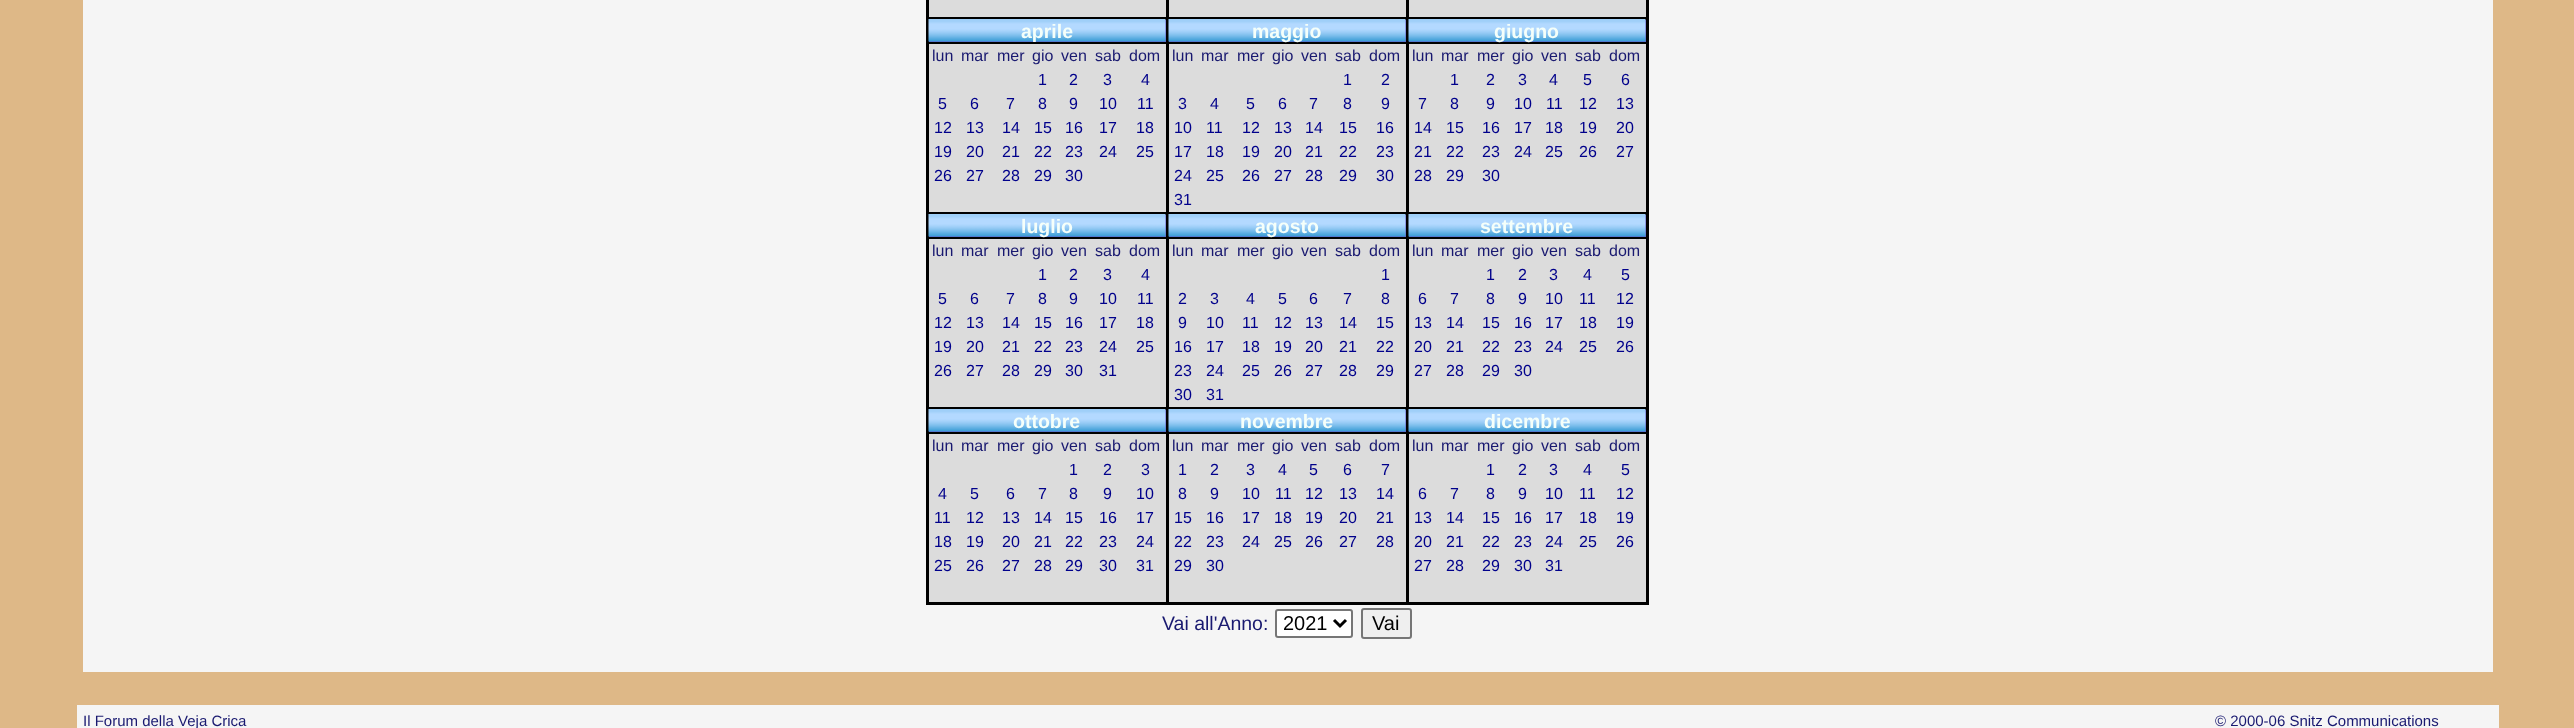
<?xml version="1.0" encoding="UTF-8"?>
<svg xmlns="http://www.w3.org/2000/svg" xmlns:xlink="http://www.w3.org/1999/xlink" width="2574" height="728">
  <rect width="100%" height="100%" fill="#deb887" />
  <rect x="83" width="2410" height="672" fill="#f5f5f5" />
  <rect x="926" width="723" height="605" fill="#000000" />
  <rect x="929" width="237" height="17" fill="#dcdcdc" />
  <rect x="1169" width="237" height="17" fill="#dcdcdc" />
  <rect x="1409" width="237" height="17" fill="#dcdcdc" />
  <rect x="929" y="20" width="237" height="22" fill="#6a5acd" />
  <image x="928" y="19" width="238" height="23" xlink:href="image1.png" />
  <rect x="929" y="44" width="237" height="168" fill="#dcdcdc" />
  <rect x="1169" y="20" width="237" height="22" fill="#6a5acd" />
  <image x="1168" y="19" width="238" height="23" xlink:href="image2.png" />
  <rect x="1169" y="44" width="237" height="168" fill="#dcdcdc" />
  <rect x="1409" y="20" width="237" height="22" fill="#6a5acd" />
  <image x="1408" y="19" width="238" height="23" xlink:href="image3.png" />
  <rect x="1409" y="44" width="237" height="168" fill="#dcdcdc" />
  <rect x="929" y="215" width="237" height="22" fill="#6a5acd" />
  <image x="928" y="214" width="238" height="23" xlink:href="image4.png" />
  <rect x="929" y="239" width="237" height="168" fill="#dcdcdc" />
  <rect x="1169" y="215" width="237" height="22" fill="#6a5acd" />
  <image x="1168" y="214" width="238" height="23" xlink:href="image5.png" />
  <rect x="1169" y="239" width="237" height="168" fill="#dcdcdc" />
  <rect x="1409" y="215" width="237" height="22" fill="#6a5acd" />
  <image x="1408" y="214" width="238" height="23" xlink:href="image6.png" />
  <rect x="1409" y="239" width="237" height="168" fill="#dcdcdc" />
  <rect x="929" y="410" width="237" height="22" fill="#6a5acd" />
  <image x="928" y="409" width="238" height="23" xlink:href="image7.png" />
  <rect x="929" y="434" width="237" height="168" fill="#dcdcdc" />
  <rect x="1169" y="410" width="237" height="22" fill="#6a5acd" />
  <image x="1168" y="409" width="238" height="23" xlink:href="image8.png" />
  <rect x="1169" y="434" width="237" height="168" fill="#dcdcdc" />
  <rect x="1409" y="410" width="237" height="22" fill="#6a5acd" />
  <image x="1408" y="409" width="238" height="23" xlink:href="image9.png" />
  <rect x="1409" y="434" width="237" height="168" fill="#dcdcdc" />
  <rect x="1276" y="610" width="76" height="27" rx="2" fill="#ffffff" stroke="#767676" stroke-width="2" />
  <path d="M 1334 620 l 6 6 l 6 -6" fill="none" stroke="#000000" stroke-width="3" />
  <rect x="1362" y="609" width="49" height="29" rx="2" fill="#efefef" stroke="#767676" stroke-width="2" />
  <rect x="77" y="705" width="2422" height="23" fill="#f5f5f5" />
  <text x="1021" y="38" style="font-family: Liberation Sans; font-size: 19.5px; font-weight: bold; fill: #f5fffa">aprile</text>
  <text x="932" y="61" style="font-family: Liberation Sans; font-size: 16px; fill: #191970">lun</text>
  <text x="961" y="61" style="font-family: Liberation Sans; font-size: 16px; fill: #191970">mar</text>
  <text x="997" y="61" style="font-family: Liberation Sans; font-size: 16px; fill: #191970">mer</text>
  <text x="1032" y="61" style="font-family: Liberation Sans; font-size: 16px; fill: #191970">gio</text>
  <text x="1061" y="61" style="font-family: Liberation Sans; font-size: 16px; fill: #191970">ven</text>
  <text x="1095" y="61" style="font-family: Liberation Sans; font-size: 16px; fill: #191970">sab</text>
  <text x="1129" y="61" style="font-family: Liberation Sans; font-size: 16px; fill: #191970">dom</text>
  <text x="1038" y="85" style="font-family: Liberation Sans; font-size: 16px; fill: #00008b">1</text>
  <text x="1069" y="85" style="font-family: Liberation Sans; font-size: 16px; fill: #00008b">2</text>
  <text x="1103" y="85" style="font-family: Liberation Sans; font-size: 16px; fill: #00008b">3</text>
  <text x="1141" y="85" style="font-family: Liberation Sans; font-size: 16px; fill: #00008b">4</text>
  <text x="938" y="109" style="font-family: Liberation Sans; font-size: 16px; fill: #00008b">5</text>
  <text x="970" y="109" style="font-family: Liberation Sans; font-size: 16px; fill: #00008b">6</text>
  <text x="1006" y="109" style="font-family: Liberation Sans; font-size: 16px; fill: #00008b">7</text>
  <text x="1038" y="109" style="font-family: Liberation Sans; font-size: 16px; fill: #00008b">8</text>
  <text x="1069" y="109" style="font-family: Liberation Sans; font-size: 16px; fill: #00008b">9</text>
  <text x="1099" y="109" style="font-family: Liberation Sans; font-size: 16px; fill: #00008b">10</text>
  <text x="1137" y="109" style="font-family: Liberation Sans; font-size: 16px; fill: #00008b">11</text>
  <text x="934" y="133" style="font-family: Liberation Sans; font-size: 16px; fill: #00008b">12</text>
  <text x="966" y="133" style="font-family: Liberation Sans; font-size: 16px; fill: #00008b">13</text>
  <text x="1002" y="133" style="font-family: Liberation Sans; font-size: 16px; fill: #00008b">14</text>
  <text x="1034" y="133" style="font-family: Liberation Sans; font-size: 16px; fill: #00008b">15</text>
  <text x="1065" y="133" style="font-family: Liberation Sans; font-size: 16px; fill: #00008b">16</text>
  <text x="1099" y="133" style="font-family: Liberation Sans; font-size: 16px; fill: #00008b">17</text>
  <text x="1136" y="133" style="font-family: Liberation Sans; font-size: 16px; fill: #00008b">18</text>
  <text x="934" y="157" style="font-family: Liberation Sans; font-size: 16px; fill: #00008b">19</text>
  <text x="966" y="157" style="font-family: Liberation Sans; font-size: 16px; fill: #00008b">20</text>
  <text x="1002" y="157" style="font-family: Liberation Sans; font-size: 16px; fill: #00008b">21</text>
  <text x="1034" y="157" style="font-family: Liberation Sans; font-size: 16px; fill: #00008b">22</text>
  <text x="1065" y="157" style="font-family: Liberation Sans; font-size: 16px; fill: #00008b">23</text>
  <text x="1099" y="157" style="font-family: Liberation Sans; font-size: 16px; fill: #00008b">24</text>
  <text x="1136" y="157" style="font-family: Liberation Sans; font-size: 16px; fill: #00008b">25</text>
  <text x="934" y="181" style="font-family: Liberation Sans; font-size: 16px; fill: #00008b">26</text>
  <text x="966" y="181" style="font-family: Liberation Sans; font-size: 16px; fill: #00008b">27</text>
  <text x="1002" y="181" style="font-family: Liberation Sans; font-size: 16px; fill: #00008b">28</text>
  <text x="1034" y="181" style="font-family: Liberation Sans; font-size: 16px; fill: #00008b">29</text>
  <text x="1065" y="181" style="font-family: Liberation Sans; font-size: 16px; fill: #00008b">30</text>
  <text x="1252" y="38" style="font-family: Liberation Sans; font-size: 19.5px; font-weight: bold; fill: #f5fffa">maggio</text>
  <text x="1172" y="61" style="font-family: Liberation Sans; font-size: 16px; fill: #191970">lun</text>
  <text x="1201" y="61" style="font-family: Liberation Sans; font-size: 16px; fill: #191970">mar</text>
  <text x="1237" y="61" style="font-family: Liberation Sans; font-size: 16px; fill: #191970">mer</text>
  <text x="1272" y="61" style="font-family: Liberation Sans; font-size: 16px; fill: #191970">gio</text>
  <text x="1301" y="61" style="font-family: Liberation Sans; font-size: 16px; fill: #191970">ven</text>
  <text x="1335" y="61" style="font-family: Liberation Sans; font-size: 16px; fill: #191970">sab</text>
  <text x="1369" y="61" style="font-family: Liberation Sans; font-size: 16px; fill: #191970">dom</text>
  <text x="1343" y="85" style="font-family: Liberation Sans; font-size: 16px; fill: #00008b">1</text>
  <text x="1381" y="85" style="font-family: Liberation Sans; font-size: 16px; fill: #00008b">2</text>
  <text x="1178" y="109" style="font-family: Liberation Sans; font-size: 16px; fill: #00008b">3</text>
  <text x="1210" y="109" style="font-family: Liberation Sans; font-size: 16px; fill: #00008b">4</text>
  <text x="1246" y="109" style="font-family: Liberation Sans; font-size: 16px; fill: #00008b">5</text>
  <text x="1278" y="109" style="font-family: Liberation Sans; font-size: 16px; fill: #00008b">6</text>
  <text x="1309" y="109" style="font-family: Liberation Sans; font-size: 16px; fill: #00008b">7</text>
  <text x="1343" y="109" style="font-family: Liberation Sans; font-size: 16px; fill: #00008b">8</text>
  <text x="1381" y="109" style="font-family: Liberation Sans; font-size: 16px; fill: #00008b">9</text>
  <text x="1174" y="133" style="font-family: Liberation Sans; font-size: 16px; fill: #00008b">10</text>
  <text x="1206" y="133" style="font-family: Liberation Sans; font-size: 16px; fill: #00008b">11</text>
  <text x="1242" y="133" style="font-family: Liberation Sans; font-size: 16px; fill: #00008b">12</text>
  <text x="1274" y="133" style="font-family: Liberation Sans; font-size: 16px; fill: #00008b">13</text>
  <text x="1305" y="133" style="font-family: Liberation Sans; font-size: 16px; fill: #00008b">14</text>
  <text x="1339" y="133" style="font-family: Liberation Sans; font-size: 16px; fill: #00008b">15</text>
  <text x="1376" y="133" style="font-family: Liberation Sans; font-size: 16px; fill: #00008b">16</text>
  <text x="1174" y="157" style="font-family: Liberation Sans; font-size: 16px; fill: #00008b">17</text>
  <text x="1206" y="157" style="font-family: Liberation Sans; font-size: 16px; fill: #00008b">18</text>
  <text x="1242" y="157" style="font-family: Liberation Sans; font-size: 16px; fill: #00008b">19</text>
  <text x="1274" y="157" style="font-family: Liberation Sans; font-size: 16px; fill: #00008b">20</text>
  <text x="1305" y="157" style="font-family: Liberation Sans; font-size: 16px; fill: #00008b">21</text>
  <text x="1339" y="157" style="font-family: Liberation Sans; font-size: 16px; fill: #00008b">22</text>
  <text x="1376" y="157" style="font-family: Liberation Sans; font-size: 16px; fill: #00008b">23</text>
  <text x="1174" y="181" style="font-family: Liberation Sans; font-size: 16px; fill: #00008b">24</text>
  <text x="1206" y="181" style="font-family: Liberation Sans; font-size: 16px; fill: #00008b">25</text>
  <text x="1242" y="181" style="font-family: Liberation Sans; font-size: 16px; fill: #00008b">26</text>
  <text x="1274" y="181" style="font-family: Liberation Sans; font-size: 16px; fill: #00008b">27</text>
  <text x="1305" y="181" style="font-family: Liberation Sans; font-size: 16px; fill: #00008b">28</text>
  <text x="1339" y="181" style="font-family: Liberation Sans; font-size: 16px; fill: #00008b">29</text>
  <text x="1376" y="181" style="font-family: Liberation Sans; font-size: 16px; fill: #00008b">30</text>
  <text x="1174" y="205" style="font-family: Liberation Sans; font-size: 16px; fill: #00008b">31</text>
  <text x="1494" y="38" style="font-family: Liberation Sans; font-size: 19.5px; font-weight: bold; fill: #f5fffa">giugno</text>
  <text x="1412" y="61" style="font-family: Liberation Sans; font-size: 16px; fill: #191970">lun</text>
  <text x="1441" y="61" style="font-family: Liberation Sans; font-size: 16px; fill: #191970">mar</text>
  <text x="1477" y="61" style="font-family: Liberation Sans; font-size: 16px; fill: #191970">mer</text>
  <text x="1512" y="61" style="font-family: Liberation Sans; font-size: 16px; fill: #191970">gio</text>
  <text x="1541" y="61" style="font-family: Liberation Sans; font-size: 16px; fill: #191970">ven</text>
  <text x="1575" y="61" style="font-family: Liberation Sans; font-size: 16px; fill: #191970">sab</text>
  <text x="1609" y="61" style="font-family: Liberation Sans; font-size: 16px; fill: #191970">dom</text>
  <text x="1450" y="85" style="font-family: Liberation Sans; font-size: 16px; fill: #00008b">1</text>
  <text x="1486" y="85" style="font-family: Liberation Sans; font-size: 16px; fill: #00008b">2</text>
  <text x="1518" y="85" style="font-family: Liberation Sans; font-size: 16px; fill: #00008b">3</text>
  <text x="1549" y="85" style="font-family: Liberation Sans; font-size: 16px; fill: #00008b">4</text>
  <text x="1583" y="85" style="font-family: Liberation Sans; font-size: 16px; fill: #00008b">5</text>
  <text x="1621" y="85" style="font-family: Liberation Sans; font-size: 16px; fill: #00008b">6</text>
  <text x="1418" y="109" style="font-family: Liberation Sans; font-size: 16px; fill: #00008b">7</text>
  <text x="1450" y="109" style="font-family: Liberation Sans; font-size: 16px; fill: #00008b">8</text>
  <text x="1486" y="109" style="font-family: Liberation Sans; font-size: 16px; fill: #00008b">9</text>
  <text x="1514" y="109" style="font-family: Liberation Sans; font-size: 16px; fill: #00008b">10</text>
  <text x="1546" y="109" style="font-family: Liberation Sans; font-size: 16px; fill: #00008b">11</text>
  <text x="1579" y="109" style="font-family: Liberation Sans; font-size: 16px; fill: #00008b">12</text>
  <text x="1616" y="109" style="font-family: Liberation Sans; font-size: 16px; fill: #00008b">13</text>
  <text x="1414" y="133" style="font-family: Liberation Sans; font-size: 16px; fill: #00008b">14</text>
  <text x="1446" y="133" style="font-family: Liberation Sans; font-size: 16px; fill: #00008b">15</text>
  <text x="1482" y="133" style="font-family: Liberation Sans; font-size: 16px; fill: #00008b">16</text>
  <text x="1514" y="133" style="font-family: Liberation Sans; font-size: 16px; fill: #00008b">17</text>
  <text x="1545" y="133" style="font-family: Liberation Sans; font-size: 16px; fill: #00008b">18</text>
  <text x="1579" y="133" style="font-family: Liberation Sans; font-size: 16px; fill: #00008b">19</text>
  <text x="1616" y="133" style="font-family: Liberation Sans; font-size: 16px; fill: #00008b">20</text>
  <text x="1414" y="157" style="font-family: Liberation Sans; font-size: 16px; fill: #00008b">21</text>
  <text x="1446" y="157" style="font-family: Liberation Sans; font-size: 16px; fill: #00008b">22</text>
  <text x="1482" y="157" style="font-family: Liberation Sans; font-size: 16px; fill: #00008b">23</text>
  <text x="1514" y="157" style="font-family: Liberation Sans; font-size: 16px; fill: #00008b">24</text>
  <text x="1545" y="157" style="font-family: Liberation Sans; font-size: 16px; fill: #00008b">25</text>
  <text x="1579" y="157" style="font-family: Liberation Sans; font-size: 16px; fill: #00008b">26</text>
  <text x="1616" y="157" style="font-family: Liberation Sans; font-size: 16px; fill: #00008b">27</text>
  <text x="1414" y="181" style="font-family: Liberation Sans; font-size: 16px; fill: #00008b">28</text>
  <text x="1446" y="181" style="font-family: Liberation Sans; font-size: 16px; fill: #00008b">29</text>
  <text x="1482" y="181" style="font-family: Liberation Sans; font-size: 16px; fill: #00008b">30</text>
  <text x="1021" y="233" style="font-family: Liberation Sans; font-size: 19.5px; font-weight: bold; fill: #f5fffa">luglio</text>
  <text x="932" y="256" style="font-family: Liberation Sans; font-size: 16px; fill: #191970">lun</text>
  <text x="961" y="256" style="font-family: Liberation Sans; font-size: 16px; fill: #191970">mar</text>
  <text x="997" y="256" style="font-family: Liberation Sans; font-size: 16px; fill: #191970">mer</text>
  <text x="1032" y="256" style="font-family: Liberation Sans; font-size: 16px; fill: #191970">gio</text>
  <text x="1061" y="256" style="font-family: Liberation Sans; font-size: 16px; fill: #191970">ven</text>
  <text x="1095" y="256" style="font-family: Liberation Sans; font-size: 16px; fill: #191970">sab</text>
  <text x="1129" y="256" style="font-family: Liberation Sans; font-size: 16px; fill: #191970">dom</text>
  <text x="1038" y="280" style="font-family: Liberation Sans; font-size: 16px; fill: #00008b">1</text>
  <text x="1069" y="280" style="font-family: Liberation Sans; font-size: 16px; fill: #00008b">2</text>
  <text x="1103" y="280" style="font-family: Liberation Sans; font-size: 16px; fill: #00008b">3</text>
  <text x="1141" y="280" style="font-family: Liberation Sans; font-size: 16px; fill: #00008b">4</text>
  <text x="938" y="304" style="font-family: Liberation Sans; font-size: 16px; fill: #00008b">5</text>
  <text x="970" y="304" style="font-family: Liberation Sans; font-size: 16px; fill: #00008b">6</text>
  <text x="1006" y="304" style="font-family: Liberation Sans; font-size: 16px; fill: #00008b">7</text>
  <text x="1038" y="304" style="font-family: Liberation Sans; font-size: 16px; fill: #00008b">8</text>
  <text x="1069" y="304" style="font-family: Liberation Sans; font-size: 16px; fill: #00008b">9</text>
  <text x="1099" y="304" style="font-family: Liberation Sans; font-size: 16px; fill: #00008b">10</text>
  <text x="1137" y="304" style="font-family: Liberation Sans; font-size: 16px; fill: #00008b">11</text>
  <text x="934" y="328" style="font-family: Liberation Sans; font-size: 16px; fill: #00008b">12</text>
  <text x="966" y="328" style="font-family: Liberation Sans; font-size: 16px; fill: #00008b">13</text>
  <text x="1002" y="328" style="font-family: Liberation Sans; font-size: 16px; fill: #00008b">14</text>
  <text x="1034" y="328" style="font-family: Liberation Sans; font-size: 16px; fill: #00008b">15</text>
  <text x="1065" y="328" style="font-family: Liberation Sans; font-size: 16px; fill: #00008b">16</text>
  <text x="1099" y="328" style="font-family: Liberation Sans; font-size: 16px; fill: #00008b">17</text>
  <text x="1136" y="328" style="font-family: Liberation Sans; font-size: 16px; fill: #00008b">18</text>
  <text x="934" y="352" style="font-family: Liberation Sans; font-size: 16px; fill: #00008b">19</text>
  <text x="966" y="352" style="font-family: Liberation Sans; font-size: 16px; fill: #00008b">20</text>
  <text x="1002" y="352" style="font-family: Liberation Sans; font-size: 16px; fill: #00008b">21</text>
  <text x="1034" y="352" style="font-family: Liberation Sans; font-size: 16px; fill: #00008b">22</text>
  <text x="1065" y="352" style="font-family: Liberation Sans; font-size: 16px; fill: #00008b">23</text>
  <text x="1099" y="352" style="font-family: Liberation Sans; font-size: 16px; fill: #00008b">24</text>
  <text x="1136" y="352" style="font-family: Liberation Sans; font-size: 16px; fill: #00008b">25</text>
  <text x="934" y="376" style="font-family: Liberation Sans; font-size: 16px; fill: #00008b">26</text>
  <text x="966" y="376" style="font-family: Liberation Sans; font-size: 16px; fill: #00008b">27</text>
  <text x="1002" y="376" style="font-family: Liberation Sans; font-size: 16px; fill: #00008b">28</text>
  <text x="1034" y="376" style="font-family: Liberation Sans; font-size: 16px; fill: #00008b">29</text>
  <text x="1065" y="376" style="font-family: Liberation Sans; font-size: 16px; fill: #00008b">30</text>
  <text x="1099" y="376" style="font-family: Liberation Sans; font-size: 16px; fill: #00008b">31</text>
  <text x="1255" y="233" style="font-family: Liberation Sans; font-size: 19.5px; font-weight: bold; fill: #f5fffa">agosto</text>
  <text x="1172" y="256" style="font-family: Liberation Sans; font-size: 16px; fill: #191970">lun</text>
  <text x="1201" y="256" style="font-family: Liberation Sans; font-size: 16px; fill: #191970">mar</text>
  <text x="1237" y="256" style="font-family: Liberation Sans; font-size: 16px; fill: #191970">mer</text>
  <text x="1272" y="256" style="font-family: Liberation Sans; font-size: 16px; fill: #191970">gio</text>
  <text x="1301" y="256" style="font-family: Liberation Sans; font-size: 16px; fill: #191970">ven</text>
  <text x="1335" y="256" style="font-family: Liberation Sans; font-size: 16px; fill: #191970">sab</text>
  <text x="1369" y="256" style="font-family: Liberation Sans; font-size: 16px; fill: #191970">dom</text>
  <text x="1381" y="280" style="font-family: Liberation Sans; font-size: 16px; fill: #00008b">1</text>
  <text x="1178" y="304" style="font-family: Liberation Sans; font-size: 16px; fill: #00008b">2</text>
  <text x="1210" y="304" style="font-family: Liberation Sans; font-size: 16px; fill: #00008b">3</text>
  <text x="1246" y="304" style="font-family: Liberation Sans; font-size: 16px; fill: #00008b">4</text>
  <text x="1278" y="304" style="font-family: Liberation Sans; font-size: 16px; fill: #00008b">5</text>
  <text x="1309" y="304" style="font-family: Liberation Sans; font-size: 16px; fill: #00008b">6</text>
  <text x="1343" y="304" style="font-family: Liberation Sans; font-size: 16px; fill: #00008b">7</text>
  <text x="1381" y="304" style="font-family: Liberation Sans; font-size: 16px; fill: #00008b">8</text>
  <text x="1178" y="328" style="font-family: Liberation Sans; font-size: 16px; fill: #00008b">9</text>
  <text x="1206" y="328" style="font-family: Liberation Sans; font-size: 16px; fill: #00008b">10</text>
  <text x="1242" y="328" style="font-family: Liberation Sans; font-size: 16px; fill: #00008b">11</text>
  <text x="1274" y="328" style="font-family: Liberation Sans; font-size: 16px; fill: #00008b">12</text>
  <text x="1305" y="328" style="font-family: Liberation Sans; font-size: 16px; fill: #00008b">13</text>
  <text x="1339" y="328" style="font-family: Liberation Sans; font-size: 16px; fill: #00008b">14</text>
  <text x="1376" y="328" style="font-family: Liberation Sans; font-size: 16px; fill: #00008b">15</text>
  <text x="1174" y="352" style="font-family: Liberation Sans; font-size: 16px; fill: #00008b">16</text>
  <text x="1206" y="352" style="font-family: Liberation Sans; font-size: 16px; fill: #00008b">17</text>
  <text x="1242" y="352" style="font-family: Liberation Sans; font-size: 16px; fill: #00008b">18</text>
  <text x="1274" y="352" style="font-family: Liberation Sans; font-size: 16px; fill: #00008b">19</text>
  <text x="1305" y="352" style="font-family: Liberation Sans; font-size: 16px; fill: #00008b">20</text>
  <text x="1339" y="352" style="font-family: Liberation Sans; font-size: 16px; fill: #00008b">21</text>
  <text x="1376" y="352" style="font-family: Liberation Sans; font-size: 16px; fill: #00008b">22</text>
  <text x="1174" y="376" style="font-family: Liberation Sans; font-size: 16px; fill: #00008b">23</text>
  <text x="1206" y="376" style="font-family: Liberation Sans; font-size: 16px; fill: #00008b">24</text>
  <text x="1242" y="376" style="font-family: Liberation Sans; font-size: 16px; fill: #00008b">25</text>
  <text x="1274" y="376" style="font-family: Liberation Sans; font-size: 16px; fill: #00008b">26</text>
  <text x="1305" y="376" style="font-family: Liberation Sans; font-size: 16px; fill: #00008b">27</text>
  <text x="1339" y="376" style="font-family: Liberation Sans; font-size: 16px; fill: #00008b">28</text>
  <text x="1376" y="376" style="font-family: Liberation Sans; font-size: 16px; fill: #00008b">29</text>
  <text x="1174" y="400" style="font-family: Liberation Sans; font-size: 16px; fill: #00008b">30</text>
  <text x="1206" y="400" style="font-family: Liberation Sans; font-size: 16px; fill: #00008b">31</text>
  <text x="1480" y="233" style="font-family: Liberation Sans; font-size: 19.5px; font-weight: bold; fill: #f5fffa">settembre</text>
  <text x="1412" y="256" style="font-family: Liberation Sans; font-size: 16px; fill: #191970">lun</text>
  <text x="1441" y="256" style="font-family: Liberation Sans; font-size: 16px; fill: #191970">mar</text>
  <text x="1477" y="256" style="font-family: Liberation Sans; font-size: 16px; fill: #191970">mer</text>
  <text x="1512" y="256" style="font-family: Liberation Sans; font-size: 16px; fill: #191970">gio</text>
  <text x="1541" y="256" style="font-family: Liberation Sans; font-size: 16px; fill: #191970">ven</text>
  <text x="1575" y="256" style="font-family: Liberation Sans; font-size: 16px; fill: #191970">sab</text>
  <text x="1609" y="256" style="font-family: Liberation Sans; font-size: 16px; fill: #191970">dom</text>
  <text x="1486" y="280" style="font-family: Liberation Sans; font-size: 16px; fill: #00008b">1</text>
  <text x="1518" y="280" style="font-family: Liberation Sans; font-size: 16px; fill: #00008b">2</text>
  <text x="1549" y="280" style="font-family: Liberation Sans; font-size: 16px; fill: #00008b">3</text>
  <text x="1583" y="280" style="font-family: Liberation Sans; font-size: 16px; fill: #00008b">4</text>
  <text x="1621" y="280" style="font-family: Liberation Sans; font-size: 16px; fill: #00008b">5</text>
  <text x="1418" y="304" style="font-family: Liberation Sans; font-size: 16px; fill: #00008b">6</text>
  <text x="1450" y="304" style="font-family: Liberation Sans; font-size: 16px; fill: #00008b">7</text>
  <text x="1486" y="304" style="font-family: Liberation Sans; font-size: 16px; fill: #00008b">8</text>
  <text x="1518" y="304" style="font-family: Liberation Sans; font-size: 16px; fill: #00008b">9</text>
  <text x="1545" y="304" style="font-family: Liberation Sans; font-size: 16px; fill: #00008b">10</text>
  <text x="1579" y="304" style="font-family: Liberation Sans; font-size: 16px; fill: #00008b">11</text>
  <text x="1616" y="304" style="font-family: Liberation Sans; font-size: 16px; fill: #00008b">12</text>
  <text x="1414" y="328" style="font-family: Liberation Sans; font-size: 16px; fill: #00008b">13</text>
  <text x="1446" y="328" style="font-family: Liberation Sans; font-size: 16px; fill: #00008b">14</text>
  <text x="1482" y="328" style="font-family: Liberation Sans; font-size: 16px; fill: #00008b">15</text>
  <text x="1514" y="328" style="font-family: Liberation Sans; font-size: 16px; fill: #00008b">16</text>
  <text x="1545" y="328" style="font-family: Liberation Sans; font-size: 16px; fill: #00008b">17</text>
  <text x="1579" y="328" style="font-family: Liberation Sans; font-size: 16px; fill: #00008b">18</text>
  <text x="1616" y="328" style="font-family: Liberation Sans; font-size: 16px; fill: #00008b">19</text>
  <text x="1414" y="352" style="font-family: Liberation Sans; font-size: 16px; fill: #00008b">20</text>
  <text x="1446" y="352" style="font-family: Liberation Sans; font-size: 16px; fill: #00008b">21</text>
  <text x="1482" y="352" style="font-family: Liberation Sans; font-size: 16px; fill: #00008b">22</text>
  <text x="1514" y="352" style="font-family: Liberation Sans; font-size: 16px; fill: #00008b">23</text>
  <text x="1545" y="352" style="font-family: Liberation Sans; font-size: 16px; fill: #00008b">24</text>
  <text x="1579" y="352" style="font-family: Liberation Sans; font-size: 16px; fill: #00008b">25</text>
  <text x="1616" y="352" style="font-family: Liberation Sans; font-size: 16px; fill: #00008b">26</text>
  <text x="1414" y="376" style="font-family: Liberation Sans; font-size: 16px; fill: #00008b">27</text>
  <text x="1446" y="376" style="font-family: Liberation Sans; font-size: 16px; fill: #00008b">28</text>
  <text x="1482" y="376" style="font-family: Liberation Sans; font-size: 16px; fill: #00008b">29</text>
  <text x="1514" y="376" style="font-family: Liberation Sans; font-size: 16px; fill: #00008b">30</text>
  <text x="1013" y="428" style="font-family: Liberation Sans; font-size: 19.5px; font-weight: bold; fill: #f5fffa">ottobre</text>
  <text x="932" y="451" style="font-family: Liberation Sans; font-size: 16px; fill: #191970">lun</text>
  <text x="961" y="451" style="font-family: Liberation Sans; font-size: 16px; fill: #191970">mar</text>
  <text x="997" y="451" style="font-family: Liberation Sans; font-size: 16px; fill: #191970">mer</text>
  <text x="1032" y="451" style="font-family: Liberation Sans; font-size: 16px; fill: #191970">gio</text>
  <text x="1061" y="451" style="font-family: Liberation Sans; font-size: 16px; fill: #191970">ven</text>
  <text x="1095" y="451" style="font-family: Liberation Sans; font-size: 16px; fill: #191970">sab</text>
  <text x="1129" y="451" style="font-family: Liberation Sans; font-size: 16px; fill: #191970">dom</text>
  <text x="1069" y="475" style="font-family: Liberation Sans; font-size: 16px; fill: #00008b">1</text>
  <text x="1103" y="475" style="font-family: Liberation Sans; font-size: 16px; fill: #00008b">2</text>
  <text x="1141" y="475" style="font-family: Liberation Sans; font-size: 16px; fill: #00008b">3</text>
  <text x="938" y="499" style="font-family: Liberation Sans; font-size: 16px; fill: #00008b">4</text>
  <text x="970" y="499" style="font-family: Liberation Sans; font-size: 16px; fill: #00008b">5</text>
  <text x="1006" y="499" style="font-family: Liberation Sans; font-size: 16px; fill: #00008b">6</text>
  <text x="1038" y="499" style="font-family: Liberation Sans; font-size: 16px; fill: #00008b">7</text>
  <text x="1069" y="499" style="font-family: Liberation Sans; font-size: 16px; fill: #00008b">8</text>
  <text x="1103" y="499" style="font-family: Liberation Sans; font-size: 16px; fill: #00008b">9</text>
  <text x="1136" y="499" style="font-family: Liberation Sans; font-size: 16px; fill: #00008b">10</text>
  <text x="934" y="523" style="font-family: Liberation Sans; font-size: 16px; fill: #00008b">11</text>
  <text x="966" y="523" style="font-family: Liberation Sans; font-size: 16px; fill: #00008b">12</text>
  <text x="1002" y="523" style="font-family: Liberation Sans; font-size: 16px; fill: #00008b">13</text>
  <text x="1034" y="523" style="font-family: Liberation Sans; font-size: 16px; fill: #00008b">14</text>
  <text x="1065" y="523" style="font-family: Liberation Sans; font-size: 16px; fill: #00008b">15</text>
  <text x="1099" y="523" style="font-family: Liberation Sans; font-size: 16px; fill: #00008b">16</text>
  <text x="1136" y="523" style="font-family: Liberation Sans; font-size: 16px; fill: #00008b">17</text>
  <text x="934" y="547" style="font-family: Liberation Sans; font-size: 16px; fill: #00008b">18</text>
  <text x="966" y="547" style="font-family: Liberation Sans; font-size: 16px; fill: #00008b">19</text>
  <text x="1002" y="547" style="font-family: Liberation Sans; font-size: 16px; fill: #00008b">20</text>
  <text x="1034" y="547" style="font-family: Liberation Sans; font-size: 16px; fill: #00008b">21</text>
  <text x="1065" y="547" style="font-family: Liberation Sans; font-size: 16px; fill: #00008b">22</text>
  <text x="1099" y="547" style="font-family: Liberation Sans; font-size: 16px; fill: #00008b">23</text>
  <text x="1136" y="547" style="font-family: Liberation Sans; font-size: 16px; fill: #00008b">24</text>
  <text x="934" y="571" style="font-family: Liberation Sans; font-size: 16px; fill: #00008b">25</text>
  <text x="966" y="571" style="font-family: Liberation Sans; font-size: 16px; fill: #00008b">26</text>
  <text x="1002" y="571" style="font-family: Liberation Sans; font-size: 16px; fill: #00008b">27</text>
  <text x="1034" y="571" style="font-family: Liberation Sans; font-size: 16px; fill: #00008b">28</text>
  <text x="1065" y="571" style="font-family: Liberation Sans; font-size: 16px; fill: #00008b">29</text>
  <text x="1099" y="571" style="font-family: Liberation Sans; font-size: 16px; fill: #00008b">30</text>
  <text x="1136" y="571" style="font-family: Liberation Sans; font-size: 16px; fill: #00008b">31</text>
  <text x="1240" y="428" style="font-family: Liberation Sans; font-size: 19.5px; font-weight: bold; fill: #f5fffa">novembre</text>
  <text x="1172" y="451" style="font-family: Liberation Sans; font-size: 16px; fill: #191970">lun</text>
  <text x="1201" y="451" style="font-family: Liberation Sans; font-size: 16px; fill: #191970">mar</text>
  <text x="1237" y="451" style="font-family: Liberation Sans; font-size: 16px; fill: #191970">mer</text>
  <text x="1272" y="451" style="font-family: Liberation Sans; font-size: 16px; fill: #191970">gio</text>
  <text x="1301" y="451" style="font-family: Liberation Sans; font-size: 16px; fill: #191970">ven</text>
  <text x="1335" y="451" style="font-family: Liberation Sans; font-size: 16px; fill: #191970">sab</text>
  <text x="1369" y="451" style="font-family: Liberation Sans; font-size: 16px; fill: #191970">dom</text>
  <text x="1178" y="475" style="font-family: Liberation Sans; font-size: 16px; fill: #00008b">1</text>
  <text x="1210" y="475" style="font-family: Liberation Sans; font-size: 16px; fill: #00008b">2</text>
  <text x="1246" y="475" style="font-family: Liberation Sans; font-size: 16px; fill: #00008b">3</text>
  <text x="1278" y="475" style="font-family: Liberation Sans; font-size: 16px; fill: #00008b">4</text>
  <text x="1309" y="475" style="font-family: Liberation Sans; font-size: 16px; fill: #00008b">5</text>
  <text x="1343" y="475" style="font-family: Liberation Sans; font-size: 16px; fill: #00008b">6</text>
  <text x="1381" y="475" style="font-family: Liberation Sans; font-size: 16px; fill: #00008b">7</text>
  <text x="1178" y="499" style="font-family: Liberation Sans; font-size: 16px; fill: #00008b">8</text>
  <text x="1210" y="499" style="font-family: Liberation Sans; font-size: 16px; fill: #00008b">9</text>
  <text x="1242" y="499" style="font-family: Liberation Sans; font-size: 16px; fill: #00008b">10</text>
  <text x="1275" y="499" style="font-family: Liberation Sans; font-size: 16px; fill: #00008b">11</text>
  <text x="1305" y="499" style="font-family: Liberation Sans; font-size: 16px; fill: #00008b">12</text>
  <text x="1339" y="499" style="font-family: Liberation Sans; font-size: 16px; fill: #00008b">13</text>
  <text x="1376" y="499" style="font-family: Liberation Sans; font-size: 16px; fill: #00008b">14</text>
  <text x="1174" y="523" style="font-family: Liberation Sans; font-size: 16px; fill: #00008b">15</text>
  <text x="1206" y="523" style="font-family: Liberation Sans; font-size: 16px; fill: #00008b">16</text>
  <text x="1242" y="523" style="font-family: Liberation Sans; font-size: 16px; fill: #00008b">17</text>
  <text x="1274" y="523" style="font-family: Liberation Sans; font-size: 16px; fill: #00008b">18</text>
  <text x="1305" y="523" style="font-family: Liberation Sans; font-size: 16px; fill: #00008b">19</text>
  <text x="1339" y="523" style="font-family: Liberation Sans; font-size: 16px; fill: #00008b">20</text>
  <text x="1376" y="523" style="font-family: Liberation Sans; font-size: 16px; fill: #00008b">21</text>
  <text x="1174" y="547" style="font-family: Liberation Sans; font-size: 16px; fill: #00008b">22</text>
  <text x="1206" y="547" style="font-family: Liberation Sans; font-size: 16px; fill: #00008b">23</text>
  <text x="1242" y="547" style="font-family: Liberation Sans; font-size: 16px; fill: #00008b">24</text>
  <text x="1274" y="547" style="font-family: Liberation Sans; font-size: 16px; fill: #00008b">25</text>
  <text x="1305" y="547" style="font-family: Liberation Sans; font-size: 16px; fill: #00008b">26</text>
  <text x="1339" y="547" style="font-family: Liberation Sans; font-size: 16px; fill: #00008b">27</text>
  <text x="1376" y="547" style="font-family: Liberation Sans; font-size: 16px; fill: #00008b">28</text>
  <text x="1174" y="571" style="font-family: Liberation Sans; font-size: 16px; fill: #00008b">29</text>
  <text x="1206" y="571" style="font-family: Liberation Sans; font-size: 16px; fill: #00008b">30</text>
  <text x="1484" y="428" style="font-family: Liberation Sans; font-size: 19.5px; font-weight: bold; fill: #f5fffa">dicembre</text>
  <text x="1412" y="451" style="font-family: Liberation Sans; font-size: 16px; fill: #191970">lun</text>
  <text x="1441" y="451" style="font-family: Liberation Sans; font-size: 16px; fill: #191970">mar</text>
  <text x="1477" y="451" style="font-family: Liberation Sans; font-size: 16px; fill: #191970">mer</text>
  <text x="1512" y="451" style="font-family: Liberation Sans; font-size: 16px; fill: #191970">gio</text>
  <text x="1541" y="451" style="font-family: Liberation Sans; font-size: 16px; fill: #191970">ven</text>
  <text x="1575" y="451" style="font-family: Liberation Sans; font-size: 16px; fill: #191970">sab</text>
  <text x="1609" y="451" style="font-family: Liberation Sans; font-size: 16px; fill: #191970">dom</text>
  <text x="1486" y="475" style="font-family: Liberation Sans; font-size: 16px; fill: #00008b">1</text>
  <text x="1518" y="475" style="font-family: Liberation Sans; font-size: 16px; fill: #00008b">2</text>
  <text x="1549" y="475" style="font-family: Liberation Sans; font-size: 16px; fill: #00008b">3</text>
  <text x="1583" y="475" style="font-family: Liberation Sans; font-size: 16px; fill: #00008b">4</text>
  <text x="1621" y="475" style="font-family: Liberation Sans; font-size: 16px; fill: #00008b">5</text>
  <text x="1418" y="499" style="font-family: Liberation Sans; font-size: 16px; fill: #00008b">6</text>
  <text x="1450" y="499" style="font-family: Liberation Sans; font-size: 16px; fill: #00008b">7</text>
  <text x="1486" y="499" style="font-family: Liberation Sans; font-size: 16px; fill: #00008b">8</text>
  <text x="1518" y="499" style="font-family: Liberation Sans; font-size: 16px; fill: #00008b">9</text>
  <text x="1545" y="499" style="font-family: Liberation Sans; font-size: 16px; fill: #00008b">10</text>
  <text x="1579" y="499" style="font-family: Liberation Sans; font-size: 16px; fill: #00008b">11</text>
  <text x="1616" y="499" style="font-family: Liberation Sans; font-size: 16px; fill: #00008b">12</text>
  <text x="1414" y="523" style="font-family: Liberation Sans; font-size: 16px; fill: #00008b">13</text>
  <text x="1446" y="523" style="font-family: Liberation Sans; font-size: 16px; fill: #00008b">14</text>
  <text x="1482" y="523" style="font-family: Liberation Sans; font-size: 16px; fill: #00008b">15</text>
  <text x="1514" y="523" style="font-family: Liberation Sans; font-size: 16px; fill: #00008b">16</text>
  <text x="1545" y="523" style="font-family: Liberation Sans; font-size: 16px; fill: #00008b">17</text>
  <text x="1579" y="523" style="font-family: Liberation Sans; font-size: 16px; fill: #00008b">18</text>
  <text x="1616" y="523" style="font-family: Liberation Sans; font-size: 16px; fill: #00008b">19</text>
  <text x="1414" y="547" style="font-family: Liberation Sans; font-size: 16px; fill: #00008b">20</text>
  <text x="1446" y="547" style="font-family: Liberation Sans; font-size: 16px; fill: #00008b">21</text>
  <text x="1482" y="547" style="font-family: Liberation Sans; font-size: 16px; fill: #00008b">22</text>
  <text x="1514" y="547" style="font-family: Liberation Sans; font-size: 16px; fill: #00008b">23</text>
  <text x="1545" y="547" style="font-family: Liberation Sans; font-size: 16px; fill: #00008b">24</text>
  <text x="1579" y="547" style="font-family: Liberation Sans; font-size: 16px; fill: #00008b">25</text>
  <text x="1616" y="547" style="font-family: Liberation Sans; font-size: 16px; fill: #00008b">26</text>
  <text x="1414" y="571" style="font-family: Liberation Sans; font-size: 16px; fill: #00008b">27</text>
  <text x="1446" y="571" style="font-family: Liberation Sans; font-size: 16px; fill: #00008b">28</text>
  <text x="1482" y="571" style="font-family: Liberation Sans; font-size: 16px; fill: #00008b">29</text>
  <text x="1514" y="571" style="font-family: Liberation Sans; font-size: 16px; fill: #00008b">30</text>
  <text x="1545" y="571" style="font-family: Liberation Sans; font-size: 16px; fill: #00008b">31</text>
  <text x="1162" y="630" style="font-family: Liberation Sans; font-size: 19.5px; fill: #191970">Vai all'Anno:</text>
  <text x="1283" y="630" style="font-family: Liberation Sans; font-size: 20px; fill: #000000">2021</text>
  <text x="1372" y="630" style="font-family: Liberation Sans; font-size: 20px; fill: #000000">Vai</text>
  <text x="83" y="726" style="font-family: Liberation Sans; font-size: 15px; fill: #191970">Il Forum della Veja Crica</text>
  <text x="2215" y="726" style="font-family: Liberation Sans; font-size: 15px; fill: #191970">© 2000-06 Snitz Communications</text>
</svg>
